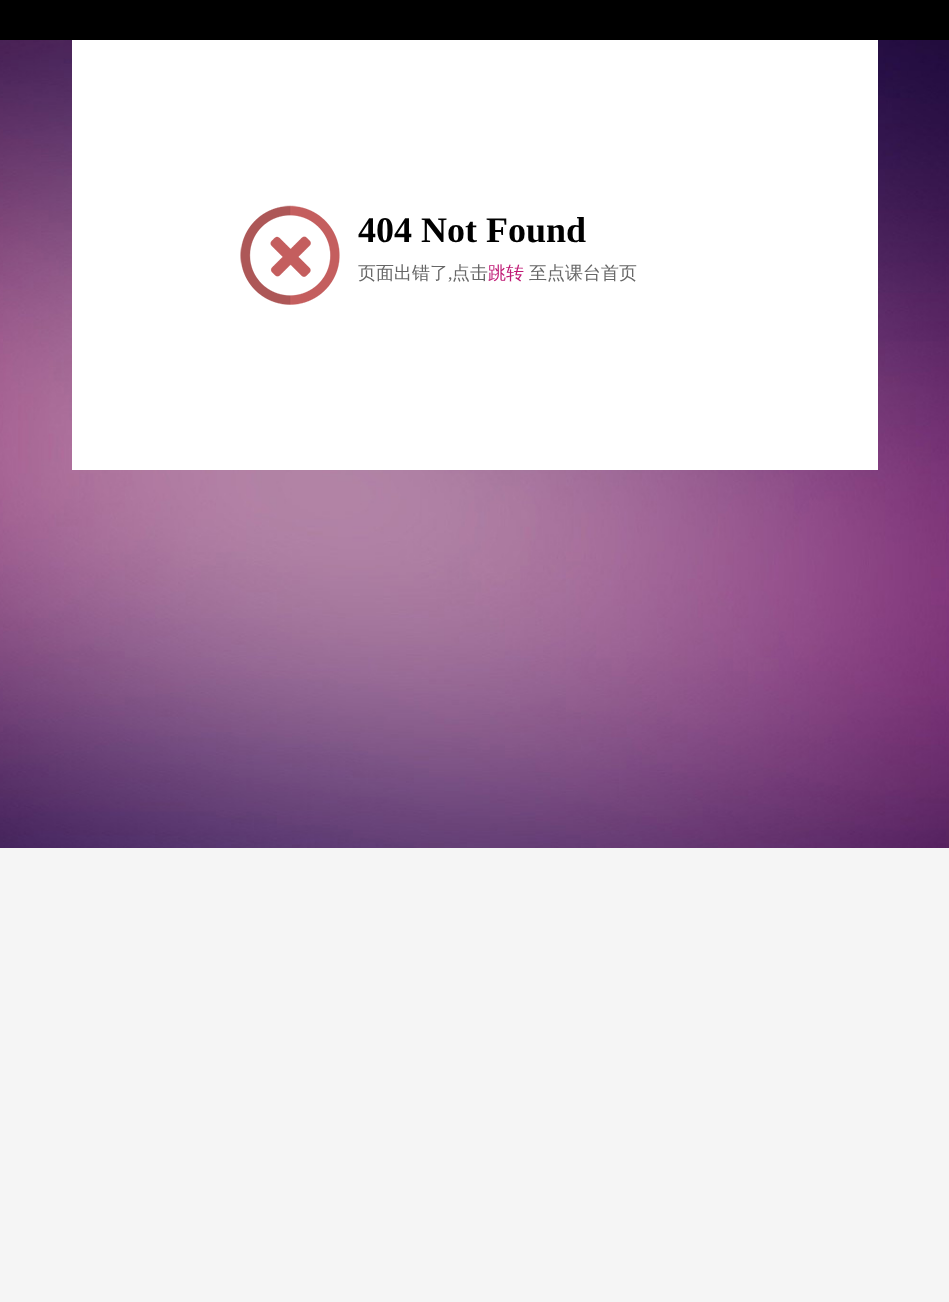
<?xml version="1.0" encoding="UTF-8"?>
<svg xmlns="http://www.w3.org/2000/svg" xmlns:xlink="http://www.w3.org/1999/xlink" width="949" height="1302">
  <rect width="100%" height="100%" fill="#f5f5f5" />
  <rect width="949" height="40" fill="#000000" />
  <image x="0" y="40" width="949" height="808" xlink:href="image1.png" />
  <rect x="72" y="40" width="806" height="430" fill="#ffffff" />
  <image x="240" y="205" width="100" height="100" xlink:href="image2.png" />
  <text x="358" y="242" style="font-family: Liberation Serif; font-size: 36px; font-weight: bold; fill: #000000">404 Not Found</text>
  <text x="358" y="279" style="font-family: WenQuanYi Zen Hei; font-size: 18px; font-weight: 500; fill: #666666">页面出错了</text>
  <text x="448" y="279" style="font-family: Liberation Serif; font-size: 18px; fill: #666666">,</text>
  <text x="452" y="279" style="font-family: WenQuanYi Zen Hei; font-size: 18px; font-weight: 500; fill: #666666">点击</text>
  <text x="488" y="279" style="font-family: WenQuanYi Zen Hei; font-size: 18px; font-weight: 500; fill: #bf1874">跳转</text>
  <text x="529" y="279" style="font-family: WenQuanYi Zen Hei; font-size: 18px; font-weight: 500; fill: #666666">至点课台首页</text>
</svg>
